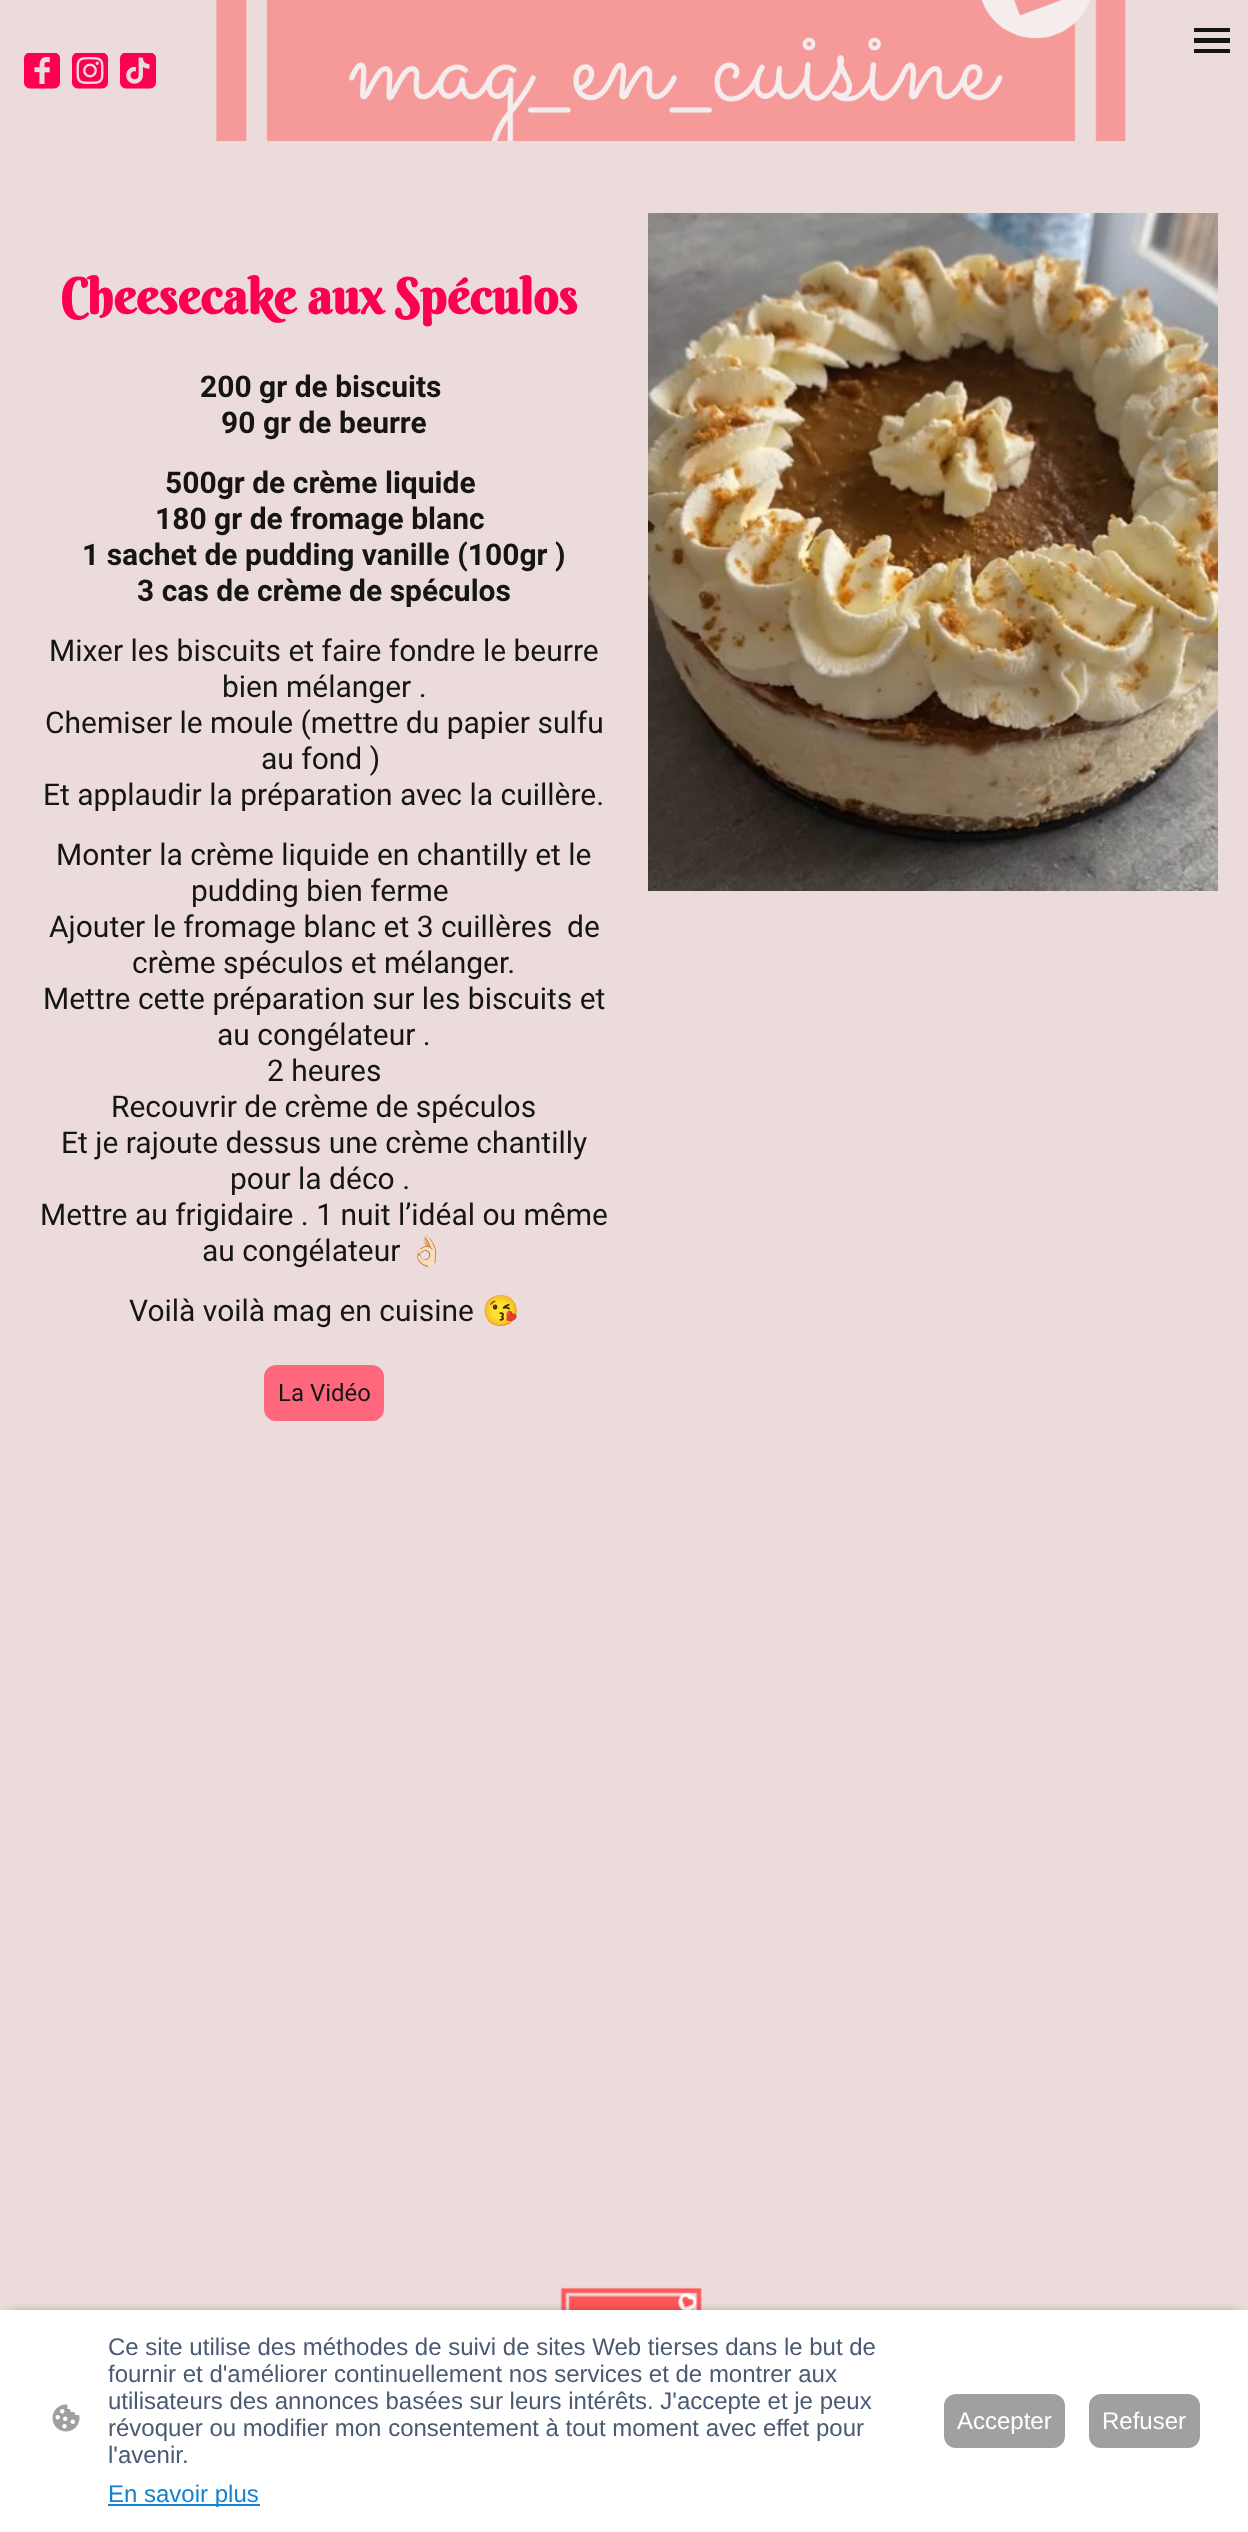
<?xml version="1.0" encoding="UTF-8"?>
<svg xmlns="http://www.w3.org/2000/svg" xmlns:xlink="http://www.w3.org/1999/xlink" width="1248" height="2532">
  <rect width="100%" height="100%" fill="#ebdbdb" />
  <image x="216" y="0" width="910" height="141" xlink:href="image1.png" />
  <rect x="1194" y="28" width="36" height="4" fill="#151515" />
  <rect x="1194" y="38" width="36" height="5" fill="#151515" />
  <rect x="1194" y="49" width="36" height="4" fill="#151515" />
  <image x="24" y="53" width="36" height="36" xlink:href="image2.png" />
  <image x="72" y="53" width="36" height="36" xlink:href="image3.png" />
  <image x="120" y="53" width="36" height="36" xlink:href="image4.png" />
  <rect x="265" y="1366" width="118" height="54" rx="11" fill="#ff677d" stroke="#ff677d" stroke-width="2" />
  <image x="648" y="213" width="570" height="678" xlink:href="image5.png" />
  <image x="560" y="2287" width="143" height="23" xlink:href="image6.png" />
  <rect x="9" y="2315" width="1230" height="204" fill="#000000" fill-opacity="0.63" filter="blur(6px)" />
  <rect y="2310" width="1248" height="222" fill="#ffffff" />
  <image x="52" y="2404" width="28" height="28" xlink:href="image7.png" />
  <rect x="108" y="2504" width="152" height="2" fill="#1183d1" />
  <rect x="945" y="2395" width="119" height="52" rx="11" fill="#a0a0a0" stroke="#a0a0a0" stroke-width="2" />
  <rect x="1090" y="2395" width="109" height="52" rx="11" fill="#a0a0a0" stroke="#a0a0a0" stroke-width="2" />
  <text x="60" y="314" style="font-family: Berkshire Swash; font-size: 49.5px; font-weight: bold; fill: #fe0050">Cheesecake aux Spéculos</text>
  <text x="200" y="397" style="font-family: Roboto; font-size: 30px; font-weight: bold; fill: #151515">200 gr de biscuits</text>
  <text x="221" y="433" style="font-family: Roboto; font-size: 30px; font-weight: bold; fill: #151515">90 gr de beurre</text>
  <text x="165" y="493" style="font-family: Roboto; font-size: 30px; font-weight: bold; fill: #151515">500gr de crème liquide</text>
  <text x="155" y="529" style="font-family: Roboto; font-size: 30px; font-weight: bold; fill: #151515">180 gr de fromage blanc</text>
  <text x="82" y="565" style="font-family: Roboto; font-size: 30px; font-weight: bold; fill: #151515">1 sachet de pudding vanille (100gr )</text>
  <text x="137" y="601" style="font-family: Roboto; font-size: 30px; font-weight: bold; fill: #151515">3 cas de crème de spéculos</text>
  <text x="49" y="661" style="font-family: Roboto; font-size: 30px; fill: #151515">Mixer les biscuits et faire fondre le beurre</text>
  <text x="222" y="697" style="font-family: Roboto; font-size: 30px; fill: #151515">bien mélanger .</text>
  <text x="45" y="733" style="font-family: Roboto; font-size: 30px; fill: #151515">Chemiser le moule (mettre du papier sulfu</text>
  <text x="261" y="769" style="font-family: Roboto; font-size: 30px; fill: #151515">au fond )</text>
  <text x="43" y="805" style="font-family: Roboto; font-size: 30px; fill: #151515">Et applaudir la préparation avec la cuillère.</text>
  <text x="56" y="865" style="font-family: Roboto; font-size: 30px; fill: #151515">Monter la crème liquide en chantilly et le</text>
  <text x="191" y="901" style="font-family: Roboto; font-size: 30px; fill: #151515">pudding bien ferme</text>
  <text x="49" y="937" style="font-family: Roboto; font-size: 30px; fill: #151515" xml:space="preserve">Ajouter le fromage blanc et 3 cuillères  de</text>
  <text x="132" y="973" style="font-family: Roboto; font-size: 30px; fill: #151515">crème spéculos et mélanger.</text>
  <text x="43" y="1009" style="font-family: Roboto; font-size: 30px; fill: #151515">Mettre cette préparation sur les biscuits et</text>
  <text x="217" y="1045" style="font-family: Roboto; font-size: 30px; fill: #151515">au congélateur .</text>
  <text x="267" y="1081" style="font-family: Roboto; font-size: 30px; fill: #151515">2 heures</text>
  <text x="111" y="1117" style="font-family: Roboto; font-size: 30px; fill: #151515">Recouvrir de crème de spéculos</text>
  <text x="61" y="1153" style="font-family: Roboto; font-size: 30px; fill: #151515">Et je rajoute dessus une crème chantilly</text>
  <text x="230" y="1189" style="font-family: Roboto; font-size: 30px; fill: #151515">pour la déco .</text>
  <text x="40" y="1225" style="font-family: Roboto; font-size: 30px; fill: #151515">Mettre au frigidaire . 1 nuit l’idéal ou même</text>
  <text x="202" y="1261" style="font-family: Roboto; font-size: 30px; fill: #151515">au congélateur</text>
  <text x="408" y="1261" style="font-family: Noto Color Emoji; font-size: 30px; fill: #151515">👌🏻</text>
  <text x="129" y="1321" style="font-family: Roboto; font-size: 30px; fill: #151515">Voilà voilà mag en cuisine</text>
  <text x="482" y="1321" style="font-family: Noto Color Emoji; font-size: 30px; fill: #151515">😘</text>
  <text x="278" y="1401" style="font-family: Roboto; font-size: 24px; fill: #151515">La Vidéo</text>
  <text x="108" y="2355" style="font-family: Liberation Sans; font-size: 24px; fill: #4a5a73">Ce site utilise des méthodes de suivi de sites Web tierses dans le but de</text>
  <text x="108" y="2382" style="font-family: Liberation Sans; font-size: 24px; fill: #4a5a73">fournir et d'améliorer continuellement nos services et de montrer aux</text>
  <text x="108" y="2409" style="font-family: Liberation Sans; font-size: 24px; fill: #4a5a73">utilisateurs des annonces basées sur leurs intérêts. J'accepte et je peux</text>
  <text x="108" y="2436" style="font-family: Liberation Sans; font-size: 24px; fill: #4a5a73">révoquer ou modifier mon consentement à tout moment avec effet pour</text>
  <text x="108" y="2463" style="font-family: Liberation Sans; font-size: 24px; fill: #4a5a73">l'avenir.</text>
  <text x="108" y="2502" style="font-family: Liberation Sans; font-size: 24px; fill: #1183d1">En savoir plus</text>
  <text x="957" y="2429" style="font-family: Liberation Sans; font-size: 24px; fill: #ffffff">Accepter</text>
  <text x="1102" y="2429" style="font-family: Liberation Sans; font-size: 24px; fill: #ffffff">Refuser</text>
</svg>
